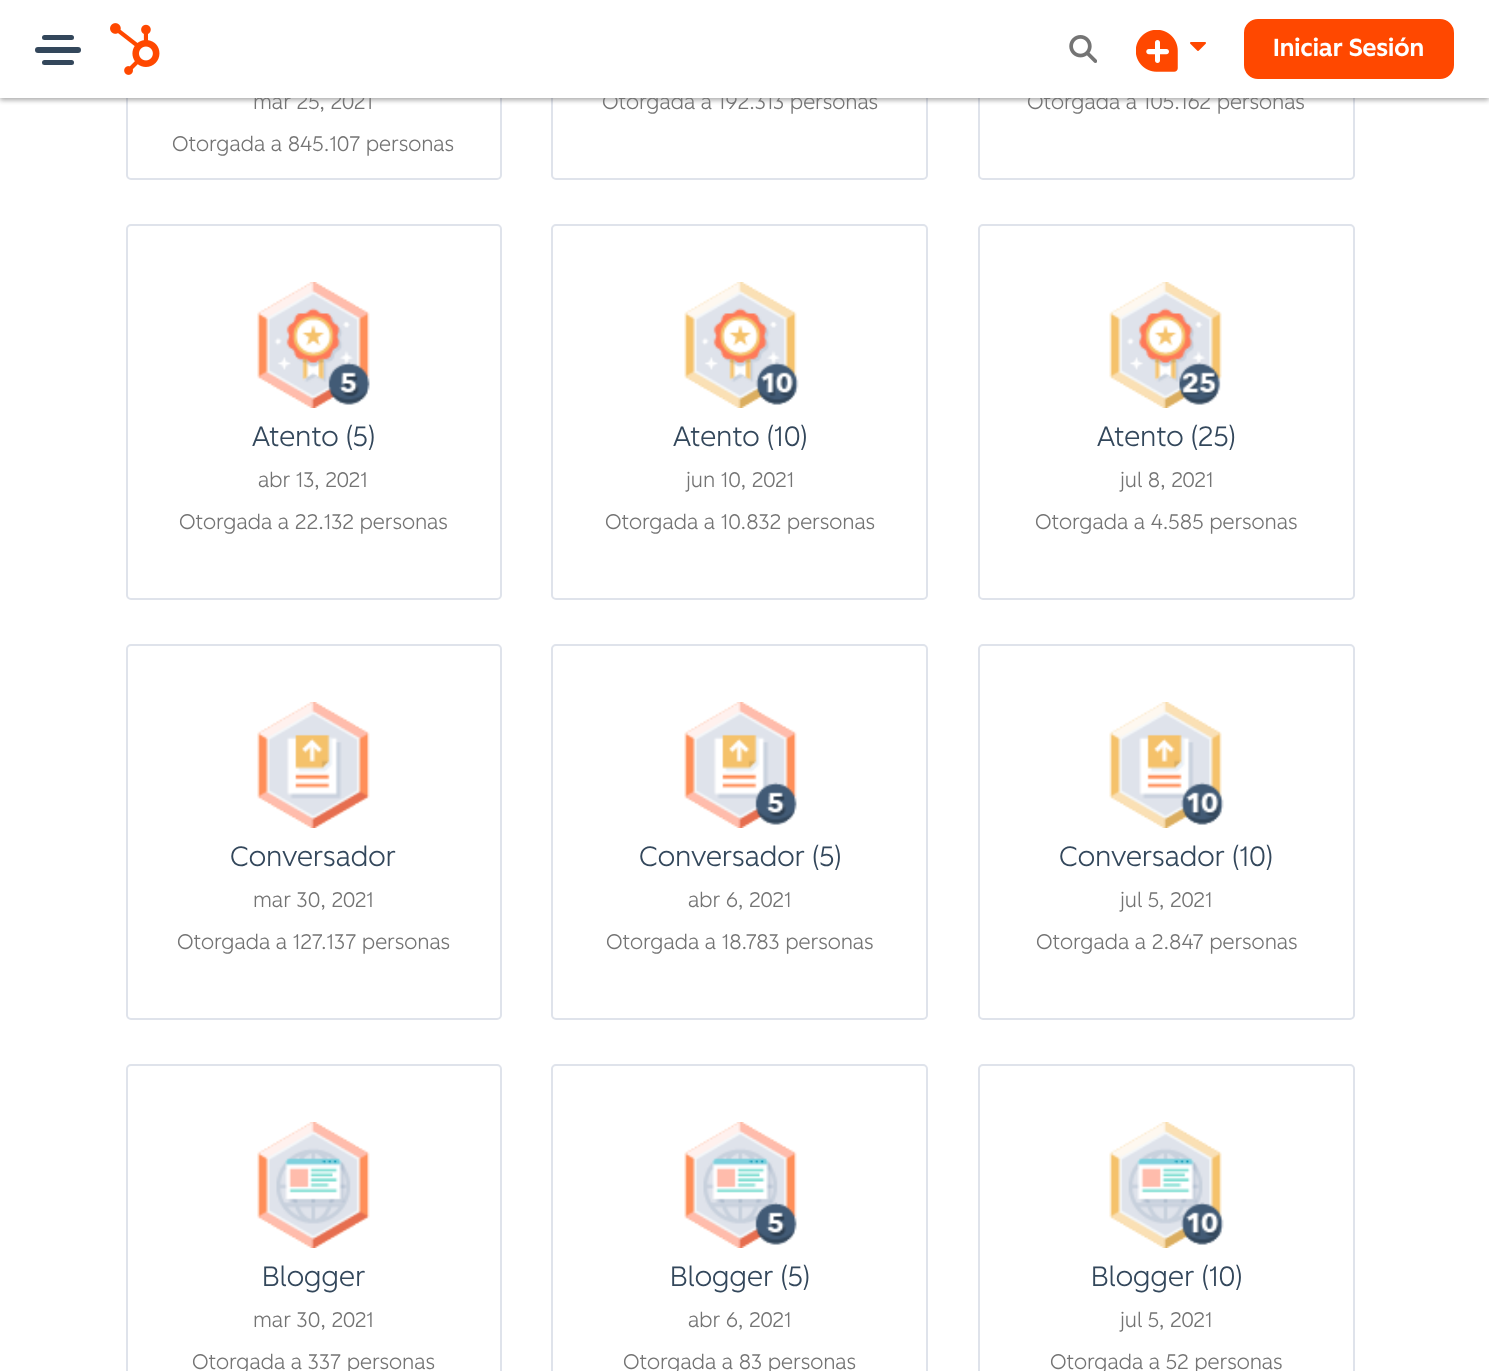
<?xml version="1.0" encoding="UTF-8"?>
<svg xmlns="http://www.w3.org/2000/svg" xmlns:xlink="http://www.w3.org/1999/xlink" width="1489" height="1371">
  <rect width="100%" height="100%" fill="#ffffff" />
  <rect x="127" y="-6" width="374" height="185" rx="4" fill="none" stroke="#dfe3eb" stroke-width="2" />
  <rect x="552" y="-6" width="375" height="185" rx="4" fill="none" stroke="#dfe3eb" stroke-width="2" />
  <rect x="979" y="-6" width="375" height="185" rx="4" fill="none" stroke="#dfe3eb" stroke-width="2" />
  <rect y="2" width="1489" height="98" fill="#000000" fill-opacity="0.24" filter="blur(2.5px)" />
  <rect y="2" width="1489" height="98" fill="#000000" fill-opacity="0.12" filter="blur(2.5px)" />
  <rect x="127" y="225" width="374" height="374" rx="4" fill="none" stroke="#dfe3eb" stroke-width="2" />
  <image x="257" y="282" width="113" height="126" xlink:href="image5.png" />
  <rect x="552" y="225" width="375" height="374" rx="4" fill="none" stroke="#dfe3eb" stroke-width="2" />
  <image x="684" y="282" width="115" height="126" xlink:href="image6.png" />
  <rect x="979" y="225" width="375" height="374" rx="4" fill="none" stroke="#dfe3eb" stroke-width="2" />
  <image x="1109" y="282" width="113" height="126" xlink:href="image7.png" />
  <rect x="127" y="645" width="374" height="374" rx="4" fill="none" stroke="#dfe3eb" stroke-width="2" />
  <image x="257" y="702" width="113" height="126" xlink:href="image8.png" />
  <rect x="552" y="645" width="375" height="374" rx="4" fill="none" stroke="#dfe3eb" stroke-width="2" />
  <image x="684" y="702" width="113" height="126" xlink:href="image9.png" />
  <rect x="979" y="645" width="375" height="374" rx="4" fill="none" stroke="#dfe3eb" stroke-width="2" />
  <image x="1109" y="702" width="115" height="126" xlink:href="image10.png" />
  <rect x="127" y="1065" width="374" height="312" rx="4" fill="none" stroke="#dfe3eb" stroke-width="2" />
  <image x="257" y="1122" width="113" height="126" xlink:href="image11.png" />
  <rect x="552" y="1065" width="375" height="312" rx="4" fill="none" stroke="#dfe3eb" stroke-width="2" />
  <image x="684" y="1122" width="113" height="126" xlink:href="image12.png" />
  <rect x="979" y="1065" width="375" height="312" rx="4" fill="none" stroke="#dfe3eb" stroke-width="2" />
  <image x="1109" y="1122" width="115" height="126" xlink:href="image13.png" />
  <text x="253" y="109" style="font-family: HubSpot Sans; font-size: 21px; font-weight: 300; fill: #747474">mar 25, 2021</text>
  <text x="172" y="151" style="font-family: HubSpot Sans; font-size: 21px; font-weight: 300; fill: #747474">Otorgada a 845.107 personas</text>
  <text x="602" y="109" style="font-family: HubSpot Sans; font-size: 21px; font-weight: 300; fill: #747474">Otorgada a 192.313 personas</text>
  <text x="1027" y="109" style="font-family: HubSpot Sans; font-size: 21px; font-weight: 300; fill: #747474">Otorgada a 105.162 personas</text>
  <rect width="1489" height="98" fill="#ffffff" />
  <image x="1190" y="42" width="16" height="9" xlink:href="image4.png" />
  <image x="1136" y="30" width="42" height="42" xlink:href="image3.png" />
  <image x="110" y="23" width="50" height="52" xlink:href="image1.png" />
  <rect x="1245" y="20" width="208" height="58" rx="13" fill="#ff4800" stroke="#ff4800" stroke-width="2" />
  <text x="1273" y="56" style="font-family: HubSpot Sans; font-size: 24.5px; font-weight: 500; fill: #ffffff">Iniciar Sesión</text>
  <image x="1069" y="35" width="28" height="28" xlink:href="image2.png" />
  <rect x="35" y="47" width="46" height="6" rx="3" fill="#33475b" />
  <rect x="42" y="60" width="32" height="5" rx="2.5" fill="#33475b" />
  <rect x="42" y="35" width="32" height="5" rx="2.5" fill="#33475b" />
  <text x="252" y="446" style="font-family: HubSpot Sans; font-size: 28px; font-weight: 300; fill: #33475b">Atento (5)</text>
  <text x="258" y="487" style="font-family: HubSpot Sans; font-size: 21px; font-weight: 300; fill: #747474">abr 13, 2021</text>
  <text x="179" y="529" style="font-family: HubSpot Sans; font-size: 21px; font-weight: 300; fill: #747474">Otorgada a 22.132 personas</text>
  <text x="673" y="446" style="font-family: HubSpot Sans; font-size: 28px; font-weight: 300; fill: #33475b">Atento (10)</text>
  <text x="686" y="487" style="font-family: HubSpot Sans; font-size: 21px; font-weight: 300; fill: #747474">jun 10, 2021</text>
  <text x="605" y="529" style="font-family: HubSpot Sans; font-size: 21px; font-weight: 300; fill: #747474">Otorgada a 10.832 personas</text>
  <text x="1097" y="446" style="font-family: HubSpot Sans; font-size: 28px; font-weight: 300; fill: #33475b">Atento (25)</text>
  <text x="1120" y="487" style="font-family: HubSpot Sans; font-size: 21px; font-weight: 300; fill: #747474">jul 8, 2021</text>
  <text x="1035" y="529" style="font-family: HubSpot Sans; font-size: 21px; font-weight: 300; fill: #747474">Otorgada a 4.585 personas</text>
  <text x="230" y="866" style="font-family: HubSpot Sans; font-size: 28px; font-weight: 300; fill: #33475b">Conversador</text>
  <text x="253" y="907" style="font-family: HubSpot Sans; font-size: 21px; font-weight: 300; fill: #747474">mar 30, 2021</text>
  <text x="177" y="949" style="font-family: HubSpot Sans; font-size: 21px; font-weight: 300; fill: #747474">Otorgada a 127.137 personas</text>
  <text x="639" y="866" style="font-family: HubSpot Sans; font-size: 28px; font-weight: 300; fill: #33475b">Conversador (5)</text>
  <text x="688" y="907" style="font-family: HubSpot Sans; font-size: 21px; font-weight: 300; fill: #747474">abr 6, 2021</text>
  <text x="606" y="949" style="font-family: HubSpot Sans; font-size: 21px; font-weight: 300; fill: #747474">Otorgada a 18.783 personas</text>
  <text x="1059" y="866" style="font-family: HubSpot Sans; font-size: 28px; font-weight: 300; fill: #33475b">Conversador (10)</text>
  <text x="1120" y="907" style="font-family: HubSpot Sans; font-size: 21px; font-weight: 300; fill: #747474">jul 5, 2021</text>
  <text x="1036" y="949" style="font-family: HubSpot Sans; font-size: 21px; font-weight: 300; fill: #747474">Otorgada a 2.847 personas</text>
  <text x="262" y="1286" style="font-family: HubSpot Sans; font-size: 28px; font-weight: 300; fill: #33475b">Blogger</text>
  <text x="253" y="1327" style="font-family: HubSpot Sans; font-size: 21px; font-weight: 300; fill: #747474">mar 30, 2021</text>
  <text x="192" y="1369" style="font-family: HubSpot Sans; font-size: 21px; font-weight: 300; fill: #747474">Otorgada a 337 personas</text>
  <text x="670" y="1286" style="font-family: HubSpot Sans; font-size: 28px; font-weight: 300; fill: #33475b">Blogger (5)</text>
  <text x="688" y="1327" style="font-family: HubSpot Sans; font-size: 21px; font-weight: 300; fill: #747474">abr 6, 2021</text>
  <text x="623" y="1369" style="font-family: HubSpot Sans; font-size: 21px; font-weight: 300; fill: #747474">Otorgada a 83 personas</text>
  <text x="1091" y="1286" style="font-family: HubSpot Sans; font-size: 28px; font-weight: 300; fill: #33475b">Blogger (10)</text>
  <text x="1120" y="1327" style="font-family: HubSpot Sans; font-size: 21px; font-weight: 300; fill: #747474">jul 5, 2021</text>
  <text x="1050" y="1369" style="font-family: HubSpot Sans; font-size: 21px; font-weight: 300; fill: #747474">Otorgada a 52 personas</text>
</svg>
